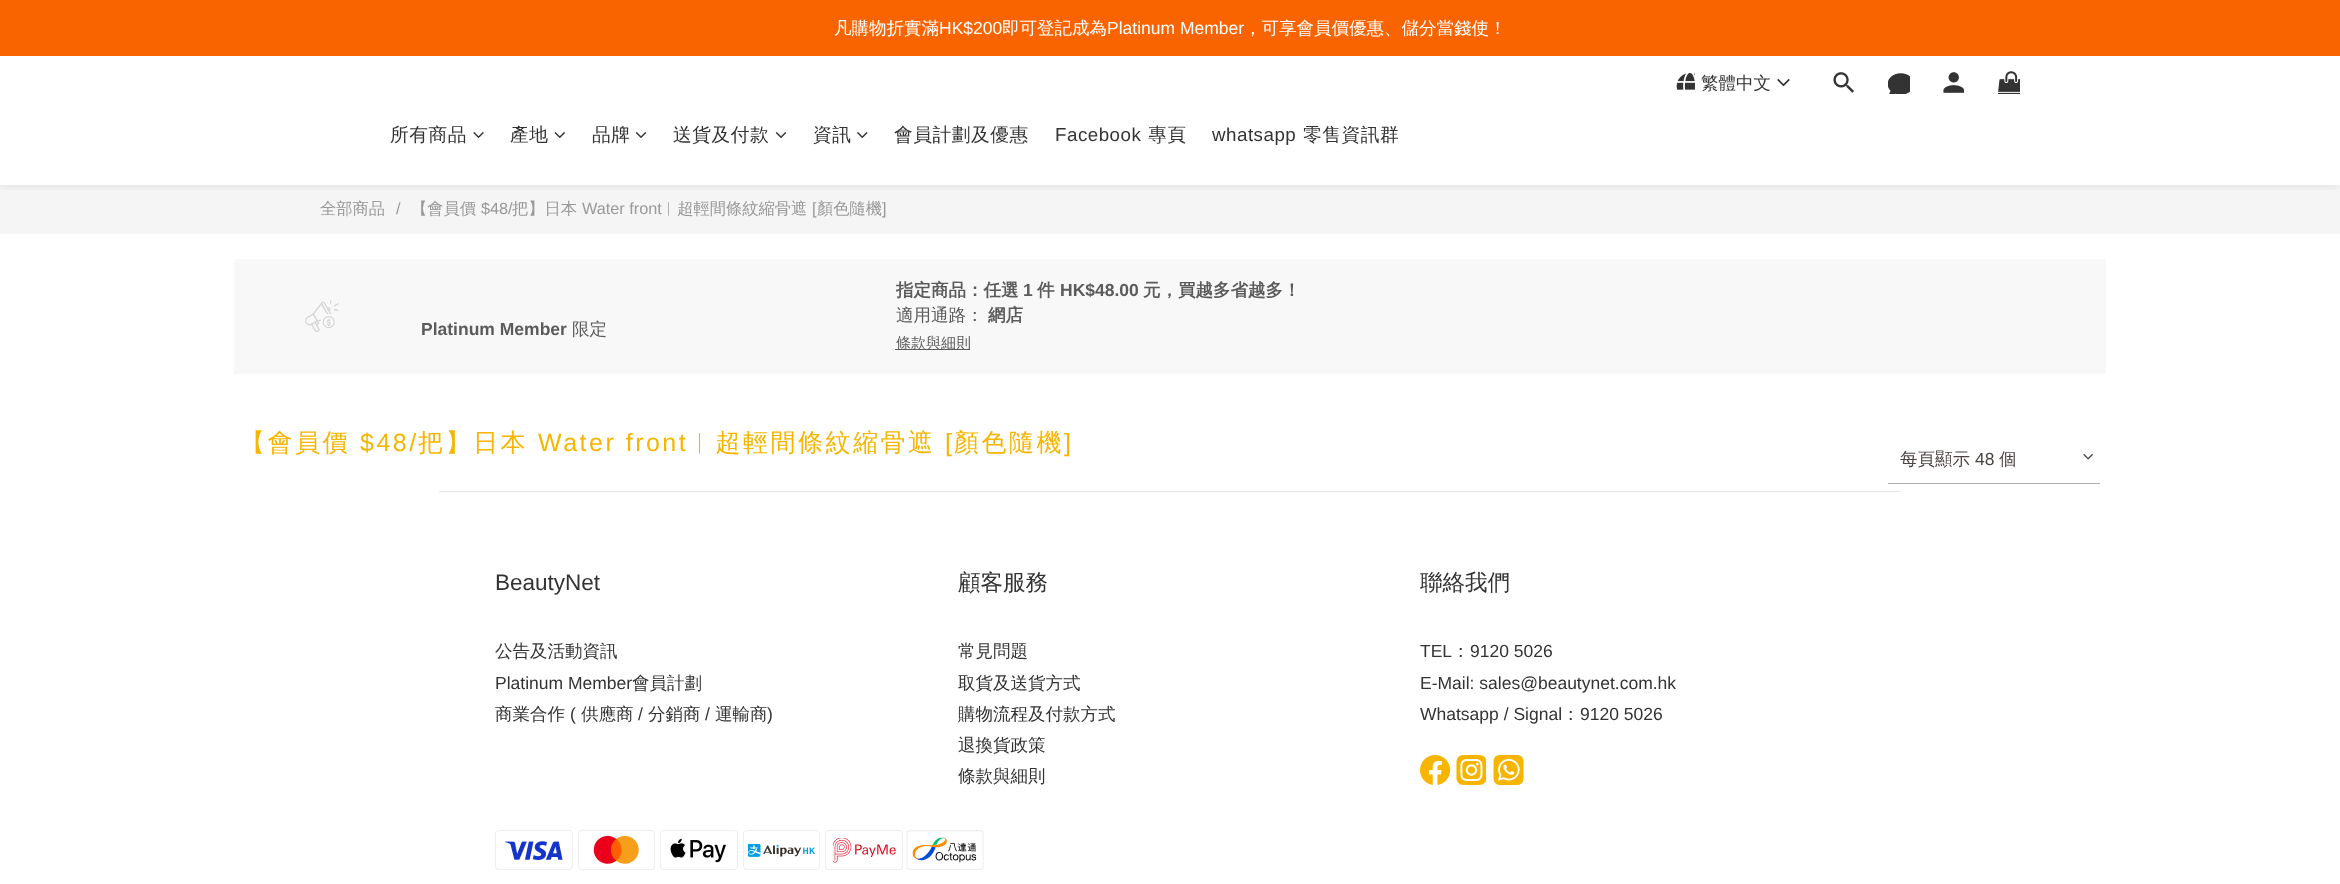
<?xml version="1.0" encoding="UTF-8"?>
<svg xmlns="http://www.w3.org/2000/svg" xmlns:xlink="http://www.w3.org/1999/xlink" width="2340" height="884">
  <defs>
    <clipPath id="clip1"><rect x="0" y="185" width="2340" height="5" /></clipPath>
  </defs>
  <rect width="100%" height="100%" fill="#ffffff" />
  <rect width="2340" height="56" fill="#fa6400" />
  <rect y="185" width="2340" height="49" fill="#f5f5f5" />
  <g clip-path="url(#clip1)">
    <rect y="59" width="2340" height="129" fill="#000000" fill-opacity="0.06" filter="blur(4px)" />
  </g>
  <image x="1676" y="73" width="19" height="17" xlink:href="image1.png" />
  <image x="1777" y="79" width="13" height="8" xlink:href="image2.png" />
  <image x="1833" y="72" width="21" height="21" xlink:href="image3.png" />
  <image x="1888" y="73" width="22" height="21" xlink:href="image4.png" />
  <image x="1943" y="72" width="22" height="21" xlink:href="image5.png" />
  <image x="1998" y="71" width="22" height="23" xlink:href="image6.png" />
  <image x="473" y="132" width="11" height="6" xlink:href="image7.png" />
  <image x="554" y="132" width="11" height="6" xlink:href="image8.png" />
  <image x="635" y="132" width="12" height="6" xlink:href="image9.png" />
  <image x="775" y="132" width="12" height="6" xlink:href="image9.png" />
  <image x="857" y="132" width="11" height="6" xlink:href="image10.png" />
  <rect x="234" y="259" width="1872" height="115" fill="#f8f8f8" />
  <image x="305" y="300" width="34" height="32" xlink:href="image11.png" />
  <rect x="895" y="349" width="75" height="1" fill="#5b5b5b" />
  <rect x="1888" y="483" width="212" height="1" fill="#adadad" />
  <image x="2083" y="453" width="10" height="7" xlink:href="image12.png" />
  <rect x="439" y="491" width="1462" height="1" fill="#e6e6e6" />
  <image x="1420" y="755" width="31" height="30" xlink:href="image13.png" />
  <image x="1456" y="755" width="30" height="30" xlink:href="image14.png" />
  <image x="1493" y="755" width="31" height="30" xlink:href="image15.png" />
  <image x="495" y="830" width="78" height="40" xlink:href="image16.png" />
  <image x="578" y="830" width="77" height="40" xlink:href="image17.png" />
  <image x="660" y="830" width="78" height="40" xlink:href="image18.png" />
  <image x="743" y="830" width="77" height="40" xlink:href="image19.png" />
  <image x="825" y="830" width="78" height="40" xlink:href="image20.png" />
  <image x="906" y="830" width="78" height="40" xlink:href="image21.png" />
  <text x="834" y="34" style="font-family: WenQuanYi Zen Hei; font-size: 17.5px; font-weight: 500; fill: #ffffff">凡購物折實滿</text>
  <text x="939" y="34" style="font-family: Liberation Sans; font-size: 17.5px; fill: #ffffff">HK$200</text>
  <text x="1002" y="34" style="font-family: WenQuanYi Zen Hei; font-size: 17.5px; font-weight: 500; fill: #ffffff">即可登記成為</text>
  <text x="1107" y="34" style="font-family: Liberation Sans; font-size: 17.5px; fill: #ffffff">Platinum Member</text>
  <text x="1244" y="34" style="font-family: WenQuanYi Zen Hei; font-size: 17.5px; font-weight: 500; fill: #ffffff">，可享會員價優惠、儲分當錢使！</text>
  <text x="1701" y="89" style="font-family: WenQuanYi Zen Hei; font-size: 17.5px; font-weight: 500; fill: #333333">繁體中文</text>
  <text x="390" y="141" style="font-family: WenQuanYi Zen Hei; font-size: 18.75px; font-weight: 500; letter-spacing: 0.5px; fill: #333333">所有商品</text>
  <text x="510" y="141" style="font-family: WenQuanYi Zen Hei; font-size: 18.75px; font-weight: 500; letter-spacing: 0.5px; fill: #333333">產地</text>
  <text x="592" y="141" style="font-family: WenQuanYi Zen Hei; font-size: 18.75px; font-weight: 500; letter-spacing: 0.5px; fill: #333333">品牌</text>
  <text x="673" y="141" style="font-family: WenQuanYi Zen Hei; font-size: 18.75px; font-weight: 500; letter-spacing: 0.5px; fill: #333333">送貨及付款</text>
  <text x="813" y="141" style="font-family: WenQuanYi Zen Hei; font-size: 18.75px; font-weight: 500; letter-spacing: 0.5px; fill: #333333">資訊</text>
  <text x="894" y="141" style="font-family: WenQuanYi Zen Hei; font-size: 18.75px; font-weight: 500; letter-spacing: 0.5px; fill: #333333">會員計劃及優惠</text>
  <text x="1055" y="141" style="font-family: Liberation Sans; font-size: 18.75px; letter-spacing: 0.5px; fill: #333333">Facebook</text>
  <text x="1148" y="141" style="font-family: WenQuanYi Zen Hei; font-size: 18.75px; font-weight: 500; letter-spacing: 0.5px; fill: #333333">專頁</text>
  <text x="1212" y="141" style="font-family: Liberation Sans; font-size: 18.75px; letter-spacing: 0.5px; fill: #333333">whatsapp</text>
  <text x="1303" y="141" style="font-family: WenQuanYi Zen Hei; font-size: 18.75px; font-weight: 500; letter-spacing: 0.5px; fill: #333333">零售資訊群</text>
  <text x="320" y="214" style="font-family: WenQuanYi Zen Hei; font-size: 16.25px; font-weight: 500; fill: #999999">全部商品</text>
  <text x="396" y="214" style="font-family: Liberation Sans; font-size: 16.25px; fill: #999999">/</text>
  <text x="411" y="214" style="font-family: WenQuanYi Zen Hei; font-size: 16.25px; font-weight: 500; fill: #999999">【會員價</text>
  <text x="481" y="214" style="font-family: Liberation Sans; font-size: 16.25px; fill: #999999">$48/</text>
  <text x="512" y="214" style="font-family: WenQuanYi Zen Hei; font-size: 16.25px; font-weight: 500; fill: #999999">把】日本</text>
  <text x="582" y="214" style="font-family: Liberation Sans; font-size: 16.25px; fill: #999999">Water front</text>
  <text x="661" y="214" style="font-family: WenQuanYi Zen Hei; font-size: 16.25px; font-weight: 500; fill: #999999">︱超輕間條紋縮骨遮</text>
  <text x="812" y="214" style="font-family: Liberation Sans; font-size: 16.25px; fill: #999999">[</text>
  <text x="817" y="214" style="font-family: WenQuanYi Zen Hei; font-size: 16.25px; font-weight: 500; fill: #999999">顏色隨機</text>
  <text x="882" y="214" style="font-family: Liberation Sans; font-size: 16.25px; fill: #999999">]</text>
  <text x="421" y="335" style="font-family: Liberation Sans; font-size: 17.5px; font-weight: bold; fill: #5b5b5b">Platinum Member</text>
  <text x="572" y="335" style="font-family: WenQuanYi Zen Hei; font-size: 17.5px; font-weight: 500; fill: #5b5b5b">限定</text>
  <text x="896" y="296" style="font-family: WenQuanYi Zen Hei; font-size: 17.5px; font-weight: bold; fill: #5b5b5b">指定商品：任選</text>
  <text x="1023" y="296" style="font-family: Liberation Sans; font-size: 17.5px; font-weight: bold; fill: #5b5b5b">1</text>
  <text x="1037" y="296" style="font-family: WenQuanYi Zen Hei; font-size: 17.5px; font-weight: bold; fill: #5b5b5b">件</text>
  <text x="1060" y="296" style="font-family: Liberation Sans; font-size: 17.5px; font-weight: bold; fill: #5b5b5b">HK$48.00</text>
  <text x="1143" y="296" style="font-family: WenQuanYi Zen Hei; font-size: 17.5px; font-weight: bold; fill: #5b5b5b">元，買越多省越多！</text>
  <text x="896" y="321" style="font-family: WenQuanYi Zen Hei; font-size: 17.5px; font-weight: 500; fill: #5b5b5b">適用通路：</text>
  <text x="988" y="321" style="font-family: WenQuanYi Zen Hei; font-size: 17.5px; font-weight: bold; fill: #5b5b5b">網店</text>
  <text x="896" y="348" style="font-family: WenQuanYi Zen Hei; font-size: 15px; font-weight: 500; fill: #5b5b5b">條款與細則</text>
  <text x="240" y="451" style="font-family: WenQuanYi Zen Hei; font-size: 25px; font-weight: 500; letter-spacing: 2.5px; fill: #f7b500">【會員價</text>
  <text x="360" y="451" style="font-family: Liberation Sans; font-size: 25px; letter-spacing: 2.5px; fill: #f7b500">$48/</text>
  <text x="418" y="451" style="font-family: WenQuanYi Zen Hei; font-size: 25px; font-weight: 500; letter-spacing: 2.5px; fill: #f7b500">把】日本</text>
  <text x="538" y="451" style="font-family: Liberation Sans; font-size: 25px; letter-spacing: 2.5px; fill: #f7b500">Water front</text>
  <text x="688" y="451" style="font-family: WenQuanYi Zen Hei; font-size: 25px; font-weight: 500; letter-spacing: 2.5px; fill: #f7b500">︱超輕間條紋縮骨遮</text>
  <text x="945" y="451" style="font-family: Liberation Sans; font-size: 25px; letter-spacing: 2.5px; fill: #f7b500">[</text>
  <text x="954" y="451" style="font-family: WenQuanYi Zen Hei; font-size: 25px; font-weight: 500; letter-spacing: 2.5px; fill: #f7b500">顏色隨機</text>
  <text x="1064" y="451" style="font-family: Liberation Sans; font-size: 25px; letter-spacing: 2.5px; fill: #f7b500">]</text>
  <text x="1900" y="465" style="font-family: WenQuanYi Zen Hei; font-size: 17.5px; font-weight: 500; fill: #4d4343">每頁顯示</text>
  <text x="1975" y="465" style="font-family: Liberation Sans; font-size: 17.5px; fill: #4d4343">48</text>
  <text x="1999" y="465" style="font-family: WenQuanYi Zen Hei; font-size: 17.5px; font-weight: 500; fill: #4d4343">個</text>
  <text x="495" y="590" style="font-family: Liberation Sans; font-size: 22.5px; fill: #333333">BeautyNet</text>
  <text x="495" y="657" style="font-family: WenQuanYi Zen Hei; font-size: 17.5px; font-weight: 500; fill: #333333">公告及活動資訊</text>
  <text x="495" y="689" style="font-family: Liberation Sans; font-size: 17.5px; fill: #333333">Platinum Member</text>
  <text x="632" y="689" style="font-family: WenQuanYi Zen Hei; font-size: 17.5px; font-weight: 500; fill: #333333">會員計劃</text>
  <text x="495" y="720" style="font-family: WenQuanYi Zen Hei; font-size: 17.5px; font-weight: 500; fill: #333333">商業合作</text>
  <text x="570" y="720" style="font-family: Liberation Sans; font-size: 17.5px; fill: #333333">(</text>
  <text x="581" y="720" style="font-family: WenQuanYi Zen Hei; font-size: 17.5px; font-weight: 500; fill: #333333">供應商</text>
  <text x="638" y="720" style="font-family: Liberation Sans; font-size: 17.5px; fill: #333333">/</text>
  <text x="648" y="720" style="font-family: WenQuanYi Zen Hei; font-size: 17.5px; font-weight: 500; fill: #333333">分銷商</text>
  <text x="705" y="720" style="font-family: Liberation Sans; font-size: 17.5px; fill: #333333">/</text>
  <text x="715" y="720" style="font-family: WenQuanYi Zen Hei; font-size: 17.5px; font-weight: 500; fill: #333333">運輸商</text>
  <text x="767" y="720" style="font-family: Liberation Sans; font-size: 17.5px; fill: #333333">)</text>
  <text x="958" y="590" style="font-family: WenQuanYi Zen Hei; font-size: 22.5px; font-weight: 500; fill: #333333">顧客服務</text>
  <text x="958" y="657" style="font-family: WenQuanYi Zen Hei; font-size: 17.5px; font-weight: 500; fill: #333333">常見問題</text>
  <text x="958" y="689" style="font-family: WenQuanYi Zen Hei; font-size: 17.5px; font-weight: 500; fill: #333333">取貨及送貨方式</text>
  <text x="958" y="720" style="font-family: WenQuanYi Zen Hei; font-size: 17.5px; font-weight: 500; fill: #333333">購物流程及付款方式</text>
  <text x="958" y="751" style="font-family: WenQuanYi Zen Hei; font-size: 17.5px; font-weight: 500; fill: #333333">退換貨政策</text>
  <text x="958" y="782" style="font-family: WenQuanYi Zen Hei; font-size: 17.5px; font-weight: 500; fill: #333333">條款與細則</text>
  <text x="1420" y="590" style="font-family: WenQuanYi Zen Hei; font-size: 22.5px; font-weight: 500; fill: #333333">聯絡我們</text>
  <text x="1420" y="657" style="font-family: Liberation Sans; font-size: 17.5px; fill: #333333">TEL</text>
  <text x="1452" y="657" style="font-family: WenQuanYi Zen Hei; font-size: 17.5px; font-weight: 500; fill: #333333">：</text>
  <text x="1470" y="657" style="font-family: Liberation Sans; font-size: 17.5px; fill: #333333">9120 5026</text>
  <text x="1420" y="689" style="font-family: Liberation Sans; font-size: 17.5px; fill: #333333">E-Mail: sales@beautynet.com.hk</text>
  <text x="1420" y="720" style="font-family: Liberation Sans; font-size: 17.5px; fill: #333333">Whatsapp / Signal</text>
  <text x="1562" y="720" style="font-family: WenQuanYi Zen Hei; font-size: 17.5px; font-weight: 500; fill: #333333">：</text>
  <text x="1580" y="720" style="font-family: Liberation Sans; font-size: 17.5px; fill: #333333">9120 5026</text>
</svg>
